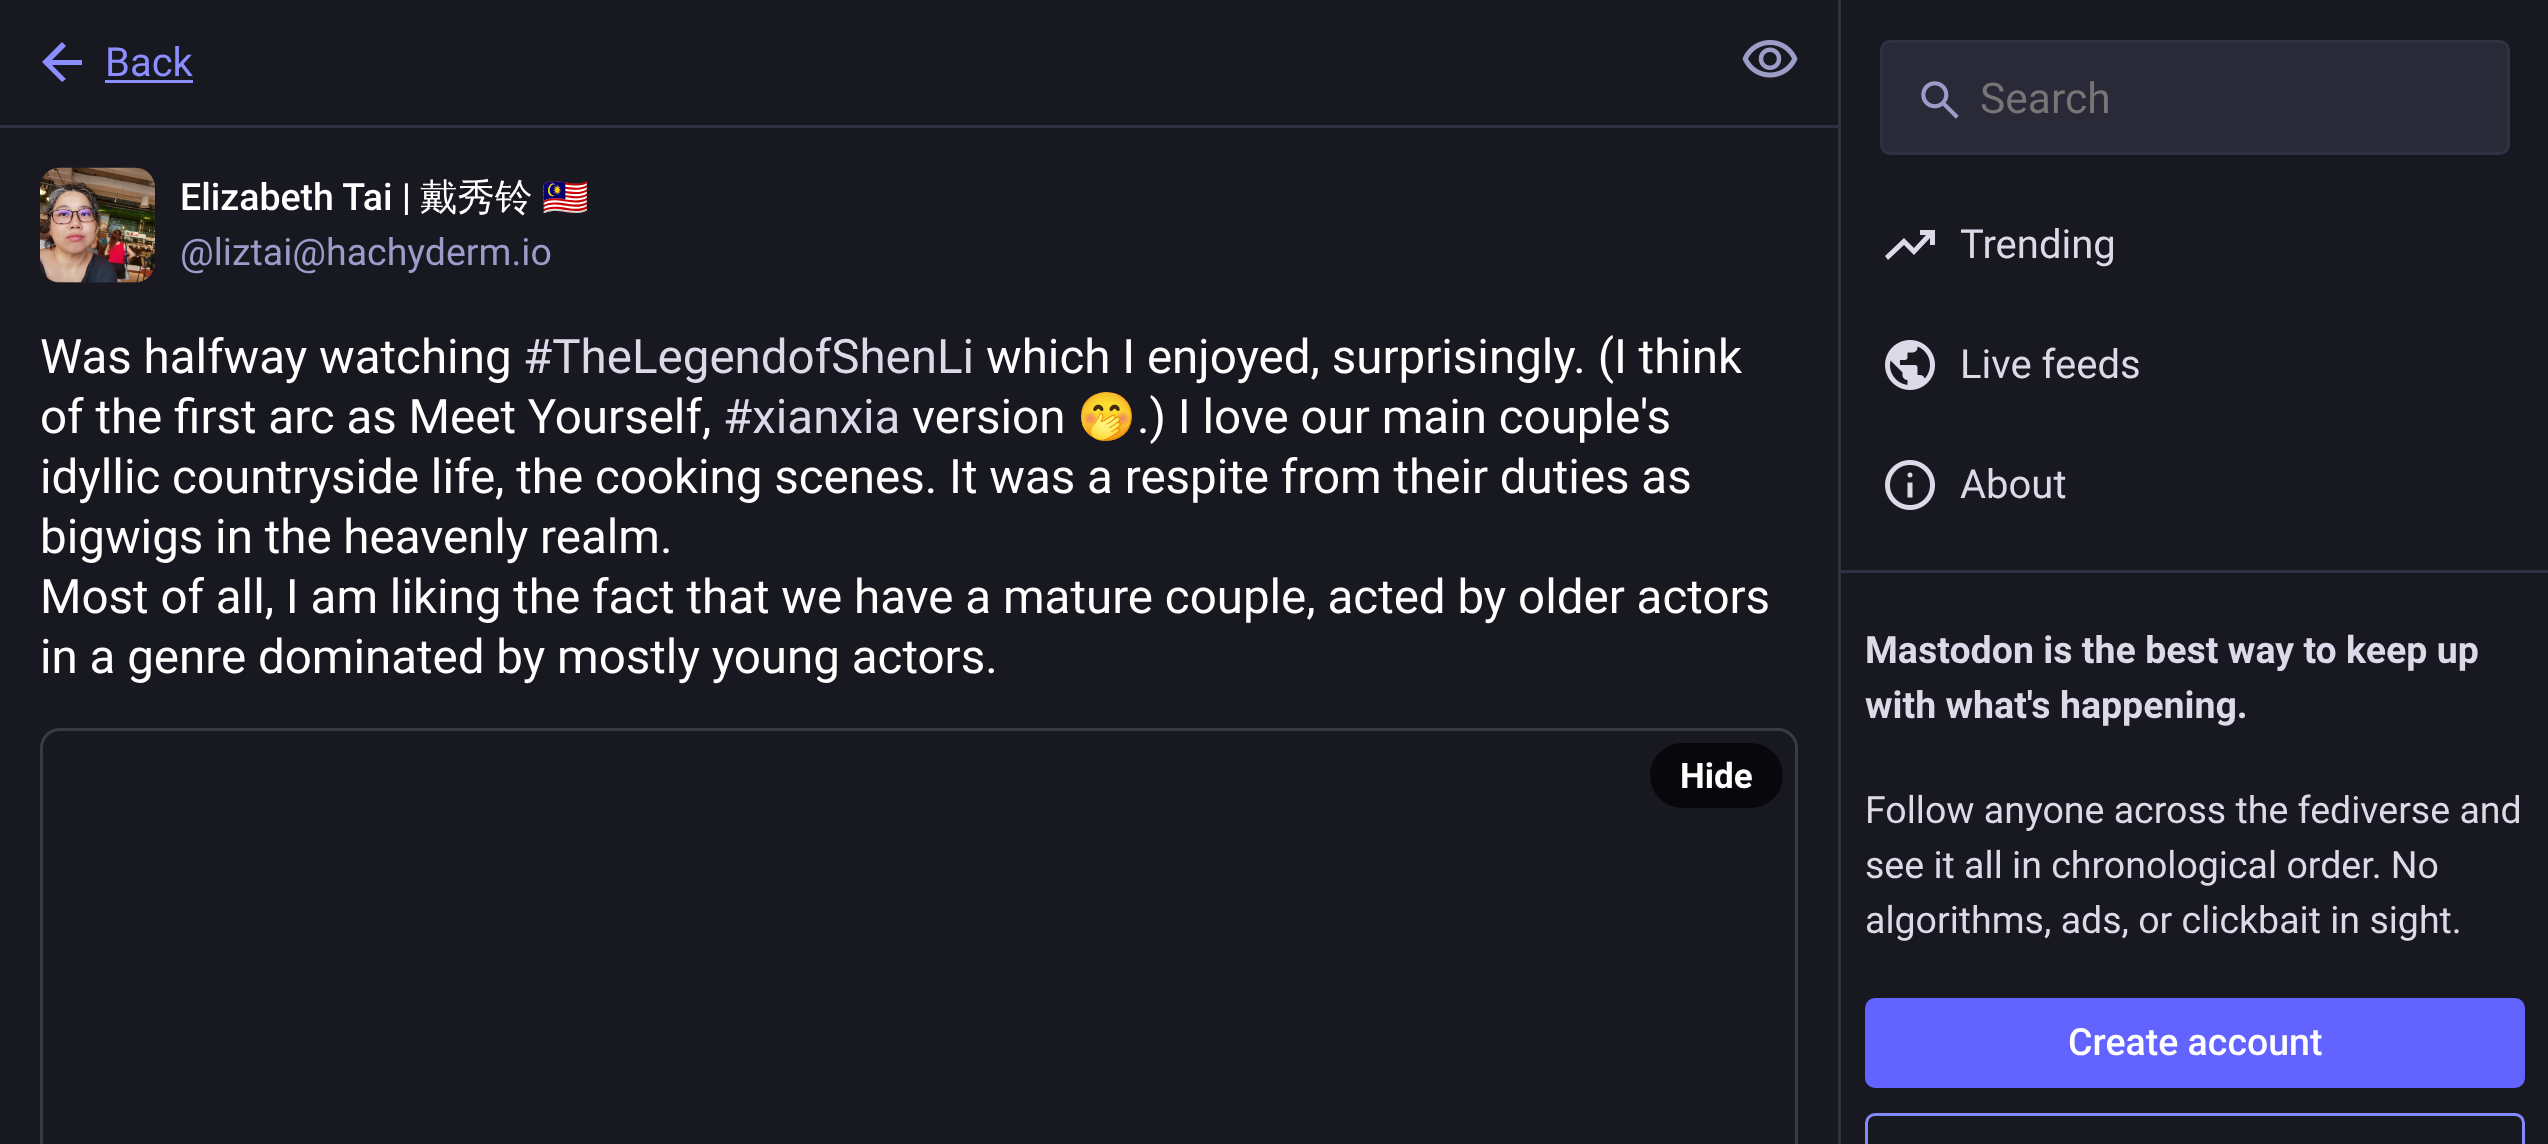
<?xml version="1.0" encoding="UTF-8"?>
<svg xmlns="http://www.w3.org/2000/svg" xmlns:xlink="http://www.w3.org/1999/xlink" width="2548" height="1144">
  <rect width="100%" height="100%" fill="#181821" />
  <rect y="125" width="1838" height="3" fill="#313144" />
  <path d="M 52 65 l 14 14 l -4 3 l -20 -20 l 20 -20 l 4 4 l -14 14 h 30 v 5 z" fill="#8c8dff" />
  <rect x="105" y="80" width="88" height="3" fill="#8c8dff" />
  <image x="1742" y="40" width="56" height="38" xlink:href="image1.png" />
  <rect x="40" y="168" width="115" height="115" rx="20" fill="#20202c" />
  <image x="40" y="167" width="115" height="116" xlink:href="image2.png" />
  <rect x="41.5" y="729.5" width="1755" height="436" rx="18.5" fill="none" stroke="#3a3a42" stroke-width="3" />
  <rect x="1650" y="743" width="133" height="65" rx="32.5" fill="#08080c" />
  <rect x="1838" width="3" height="1144" fill="#313144" />
  <rect x="1881.5" y="41.5" width="627" height="112" rx="8.5" fill="#292938" stroke="#313144" stroke-width="3" />
  <image x="1921" y="81" width="38" height="38" xlink:href="image3.png" />
  <path d="M 1888 260 l -3 -4 l 19 -18 l 10 10 l 12 -13 h -6 v -5 h 15 v 15 h -5 v -7 l -16 17 l -10 -10 z" fill="#ddd9e8" />
  <image x="1885" y="340" width="50" height="50" xlink:href="image4.png" />
  <image x="1885" y="460" width="50" height="50" xlink:href="image5.png" />
  <rect x="1840" y="570" width="708" height="3" fill="#313144" />
  <rect x="1865" y="998" width="660" height="90" rx="10" fill="#6364ff" />
  <rect x="1866.5" y="1114.5" width="657" height="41" rx="8.5" fill="none" stroke="#858afa" stroke-width="3" />
  <text x="105" y="76" style="font-family: Roboto; font-size: 40px; fill: #8c8dff">Back</text>
  <text x="180" y="210" style="font-family: Roboto; font-size: 37.5px; font-weight: 500; fill: #ffffff">Elizabeth Tai |</text>
  <text x="420" y="210" style="font-family: WenQuanYi Zen Hei; font-size: 37.5px; font-weight: 500; fill: #ffffff">戴秀铃</text>
  <text x="542" y="210" style="font-family: Noto Color Emoji; font-size: 37.5px; fill: #ffffff">🇲🇾</text>
  <text x="180" y="265" style="font-family: Roboto; font-size: 37.5px; fill: #9c9cc9">@liztai@hachyderm.io</text>
  <text x="40" y="373" style="font-family: Roboto; font-size: 47.5px; fill: #ffffff">Was halfway watching</text>
  <text x="523" y="373" style="font-family: Roboto; font-size: 47.5px; fill: #ddd9e8">#TheLegendofShenLi</text>
  <text x="986" y="373" style="font-family: Roboto; font-size: 47.5px; fill: #ffffff">which I enjoyed, surprisingly. (I think</text>
  <text x="40" y="433" style="font-family: Roboto; font-size: 47.5px; fill: #ffffff">of the first arc as Meet Yourself,</text>
  <text x="723" y="433" style="font-family: Roboto; font-size: 47.5px; fill: #ddd9e8">#xianxia</text>
  <text x="912" y="433" style="font-family: Roboto; font-size: 47.5px; fill: #ffffff">version</text>
  <text x="1077" y="433" style="font-family: Noto Color Emoji; font-size: 47.5px; fill: #ffffff">🤭</text>
  <text x="1137" y="433" style="font-family: Roboto; font-size: 47.5px; fill: #ffffff">.) I love our main couple's</text>
  <text x="40" y="493" style="font-family: Roboto; font-size: 47.5px; fill: #ffffff">idyllic countryside life, the cooking scenes. It was a respite from their duties as</text>
  <text x="40" y="553" style="font-family: Roboto; font-size: 47.5px; fill: #ffffff">bigwigs in the heavenly realm.</text>
  <text x="40" y="613" style="font-family: Roboto; font-size: 47.5px; fill: #ffffff">Most of all, I am liking the fact that we have a mature couple, acted by older actors</text>
  <text x="40" y="673" style="font-family: Roboto; font-size: 47.5px; fill: #ffffff">in a genre dominated by mostly young actors.</text>
  <text x="1680" y="788" style="font-family: Roboto; font-size: 35px; font-weight: bold; fill: #ffffff">Hide</text>
  <text x="1980" y="113" style="font-family: Roboto; font-size: 42.5px; fill: #757575">Search</text>
  <text x="1960" y="258" style="font-family: Roboto; font-size: 40px; fill: #ddd9e8">Trending</text>
  <text x="1960" y="378" style="font-family: Roboto; font-size: 40px; fill: #ddd9e8">Live feeds</text>
  <text x="1960" y="498" style="font-family: Roboto; font-size: 40px; fill: #ddd9e8">About</text>
  <text x="1865" y="663" style="font-family: Roboto; font-size: 37.5px; font-weight: bold; fill: #ddd9e8">Mastodon is the best way to keep up</text>
  <text x="1865" y="718" style="font-family: Roboto; font-size: 37.5px; font-weight: bold; fill: #ddd9e8">with what's happening.</text>
  <text x="1865" y="823" style="font-family: Roboto; font-size: 37.5px; fill: #ddd9e8">Follow anyone across the fediverse and</text>
  <text x="1865" y="878" style="font-family: Roboto; font-size: 37.5px; fill: #ddd9e8">see it all in chronological order. No</text>
  <text x="1865" y="933" style="font-family: Roboto; font-size: 37.5px; fill: #ddd9e8">algorithms, ads, or clickbait in sight.</text>
  <text x="2068" y="1055" style="font-family: Roboto; font-size: 37.5px; font-weight: 500; fill: #ffffff">Create account</text>
</svg>
